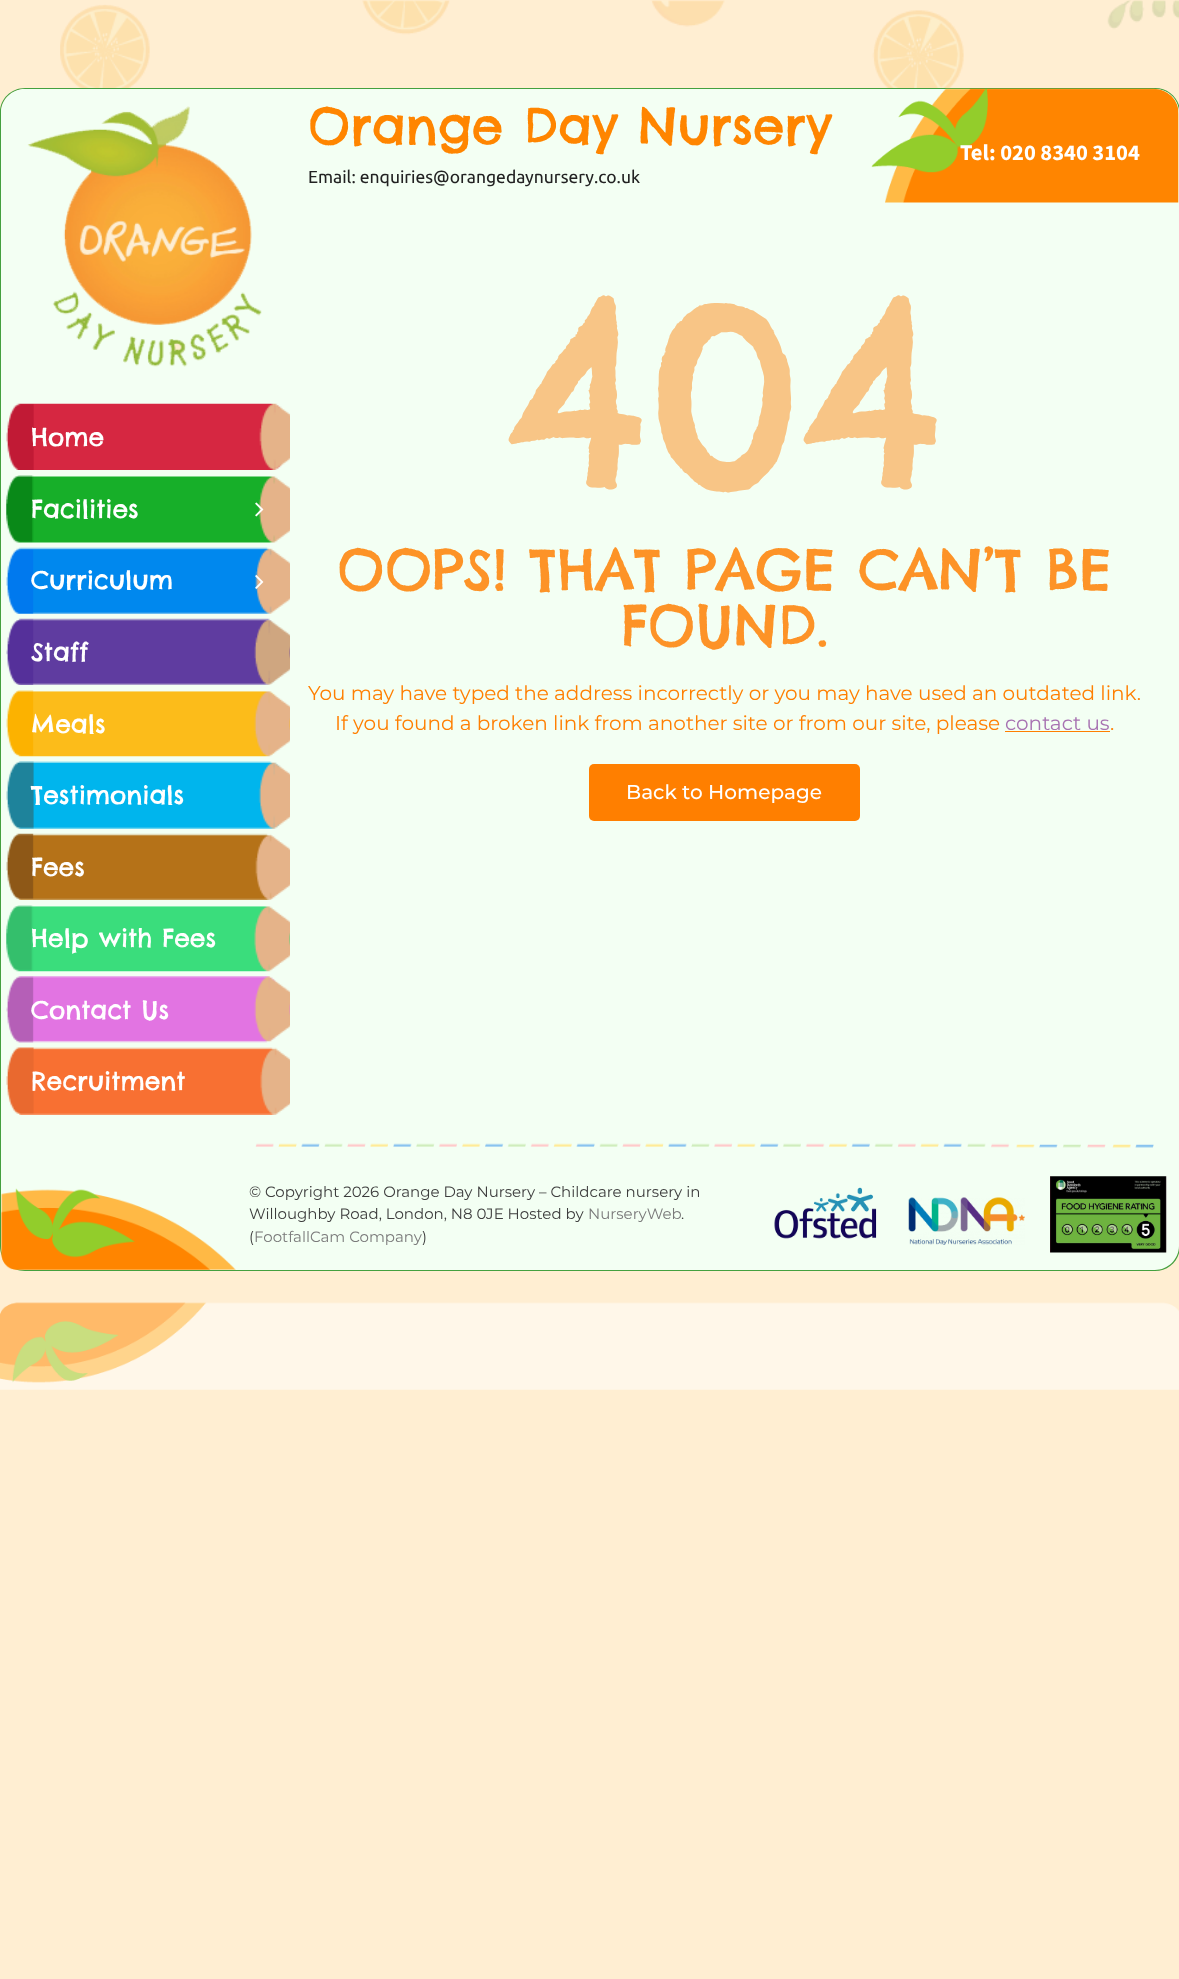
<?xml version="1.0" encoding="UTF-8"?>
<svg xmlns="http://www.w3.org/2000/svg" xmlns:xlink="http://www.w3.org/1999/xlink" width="1179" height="1979">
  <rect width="100%" height="100%" fill="#ffeed2" />
  <image x="60" y="0" width="1119" height="88" xlink:href="image1.png" />
  <path d="M 25 89 h 270 v 1041 h -294 v -1017 c 0 -13.5 10.5 -24 24 -24 z" fill="#f3fff3" />
  <path d="M 25 88 h 270 v 1042 h -295 v -1018 c 0 -13 11 -24 25 -24 z m 0 1 h 270 v 1041 h -294 v -1018 c 0 -13 11 -23 24 -23 z" fill="#44a03f" fill-rule="evenodd" />
  <path d="M 26 89 h 269 v 1041 h -294 v -1016 c 0 -14 11 -25 25 -25 z" fill="#f3fff3" />
  <image x="27" y="106" width="235" height="261" xlink:href="image2.png" />
  <image x="6" y="403" width="284" height="67" xlink:href="image3.png" />
  <image x="6" y="475" width="284" height="68" xlink:href="image4.png" />
  <image x="255" y="502" width="9" height="15" xlink:href="image5.png" />
  <image x="6" y="547" width="284" height="67" xlink:href="image6.png" />
  <image x="255" y="575" width="9" height="14" xlink:href="image7.png" />
  <image x="6" y="618" width="284" height="67" xlink:href="image8.png" />
  <image x="6" y="690" width="284" height="67" xlink:href="image9.png" />
  <image x="6" y="761" width="284" height="68" xlink:href="image10.png" />
  <image x="6" y="833" width="284" height="67" xlink:href="image11.png" />
  <image x="6" y="905" width="284" height="67" xlink:href="image12.png" />
  <image x="6" y="976" width="284" height="67" xlink:href="image13.png" />
  <image x="6" y="1047" width="284" height="68" xlink:href="image14.png" />
  <path d="M 295 89 h 860 c 13.5 0 24 10.5 24 24 v 1017 h -884 z" fill="#f3fff3" />
  <path d="M 295 88 h 860 c 14 0 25 11 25 24 v 1018 h -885 z m 0 1 h 860 c 13 0 24 10 24 23 v 1018 h -884 z" fill="#44a03f" fill-rule="evenodd" />
  <path d="M 871 89 h 283 c 14 0 25 11 25 25 v 89 h -308 z" fill="#f3fff3" />
  <image x="871" y="88" width="308" height="115" xlink:href="image15.png" />
  <rect x="1005" y="731" width="105" height="1" fill="#ff7f00" />
  <rect x="589" y="764" width="271" height="57" rx="5" fill="#ff7f00" />
  <path d="M 1 1130 h 1178 v 116 c 0 13.5 -10.5 24 -24 24 h -1130 c -13.5 0 -24 -10.5 -24 -24 z" fill="#f3fff3" />
  <path d="M 0 1130 h 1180 v 116 c 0 14 -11 25 -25 25 h -1130 c -14 0 -25 -11 -25 -25 z m 1 0 h 1178 v 116 c 0 13 -11 24 -24 24 h -1130 c -13 0 -24 -11 -24 -24 z" fill="#44a03f" fill-rule="evenodd" />
  <image x="255" y="1143" width="899" height="5" xlink:href="image16.png" />
  <image x="1" y="1188" width="235" height="82" xlink:href="image17.png" />
  <image x="774" y="1187" width="103" height="52" xlink:href="image18.png" />
  <image x="908" y="1197" width="117" height="48" xlink:href="image19.png" />
  <image x="1050" y="1176" width="117" height="77" xlink:href="image20.png" />
  <image x="0" y="1302" width="1179" height="88" xlink:href="image21.png" />
  <text x="31" y="446" style="font-family: Chelsea Market; font-size: 25px; fill: #ffffff">Home</text>
  <text x="31" y="518" style="font-family: Chelsea Market; font-size: 25px; fill: #ffffff">Facilities</text>
  <text x="31" y="589" style="font-family: Chelsea Market; font-size: 25px; fill: #ffffff">Curriculum</text>
  <text x="31" y="661" style="font-family: Chelsea Market; font-size: 25px; fill: #ffffff">Staff</text>
  <text x="31" y="733" style="font-family: Chelsea Market; font-size: 25px; fill: #ffffff">Meals</text>
  <text x="31" y="804" style="font-family: Chelsea Market; font-size: 25px; fill: #ffffff">Testimonials</text>
  <text x="31" y="876" style="font-family: Chelsea Market; font-size: 25px; fill: #ffffff">Fees</text>
  <text x="31" y="947" style="font-family: Chelsea Market; font-size: 25px; fill: #ffffff">Help with Fees</text>
  <text x="31" y="1019" style="font-family: Chelsea Market; font-size: 25px; fill: #ffffff">Contact Us</text>
  <text x="31" y="1090" style="font-family: Chelsea Market; font-size: 25px; fill: #ffffff">Recruitment</text>
  <text x="308" y="144" style="font-family: Chelsea Market; font-size: 50px; fill: #ff8500">Orange Day Nursery</text>
  <text x="308" y="183" style="font-family: Ubuntu; font-size: 17.5px; fill: #222222">Email: enquiries@orangedaynursery.co.uk</text>
  <text x="960" y="160" style="font-family: Source Sans Pro; font-size: 22.5px; font-weight: bold; fill: #ffffff">Tel: 020 8340 3104</text>
  <text x="505" y="483" style="font-family: Chelsea Market; font-size: 250px; fill: #f8c586">404</text>
  <text x="337" y="590" style="font-family: Chelsea Market; font-size: 56.25px; fill: #fd9327">OOPS! THAT PAGE CAN’T BE</text>
  <text x="621" y="646" style="font-family: Chelsea Market; font-size: 56.25px; fill: #fd9327">FOUND.</text>
  <text x="308" y="700" style="font-family: Montserrat; font-size: 20px; fill: #ff7f00">You may have typed the address incorrectly or you may have used an outdated link.</text>
  <text x="335" y="730" style="font-family: Montserrat; font-size: 20px; fill: #ff7f00">If you found a broken link from another site or from our site, please</text>
  <text x="1005" y="730" style="font-family: Montserrat; font-size: 20px; fill: #a772b1">contact us</text>
  <text x="1110" y="730" style="font-family: Montserrat; font-size: 20px; fill: #ff7f00">.</text>
  <text x="626" y="799" style="font-family: Montserrat; font-size: 20px; font-weight: 500; fill: #ffffff">Back to Homepage</text>
  <text x="249" y="1197" style="font-family: Montserrat; font-size: 15px; fill: #3d3d3d">© Copyright 2026 Orange Day Nursery – Childcare nursery in</text>
  <text x="249" y="1219" style="font-family: Montserrat; font-size: 15px; fill: #3d3d3d">Willoughby Road, London, N8 0JE Hosted by</text>
  <text x="588" y="1219" style="font-family: Montserrat; font-size: 15px; fill: #7a7a7a">NurseryWeb</text>
  <text x="681" y="1219" style="font-family: Montserrat; font-size: 15px; fill: #3d3d3d">.</text>
  <text x="249" y="1242" style="font-family: Montserrat; font-size: 15px; fill: #3d3d3d">(</text>
  <text x="254" y="1242" style="font-family: Montserrat; font-size: 15px; fill: #7a7a7a">FootfallCam Company</text>
  <text x="422" y="1242" style="font-family: Montserrat; font-size: 15px; fill: #3d3d3d">)</text>
</svg>
